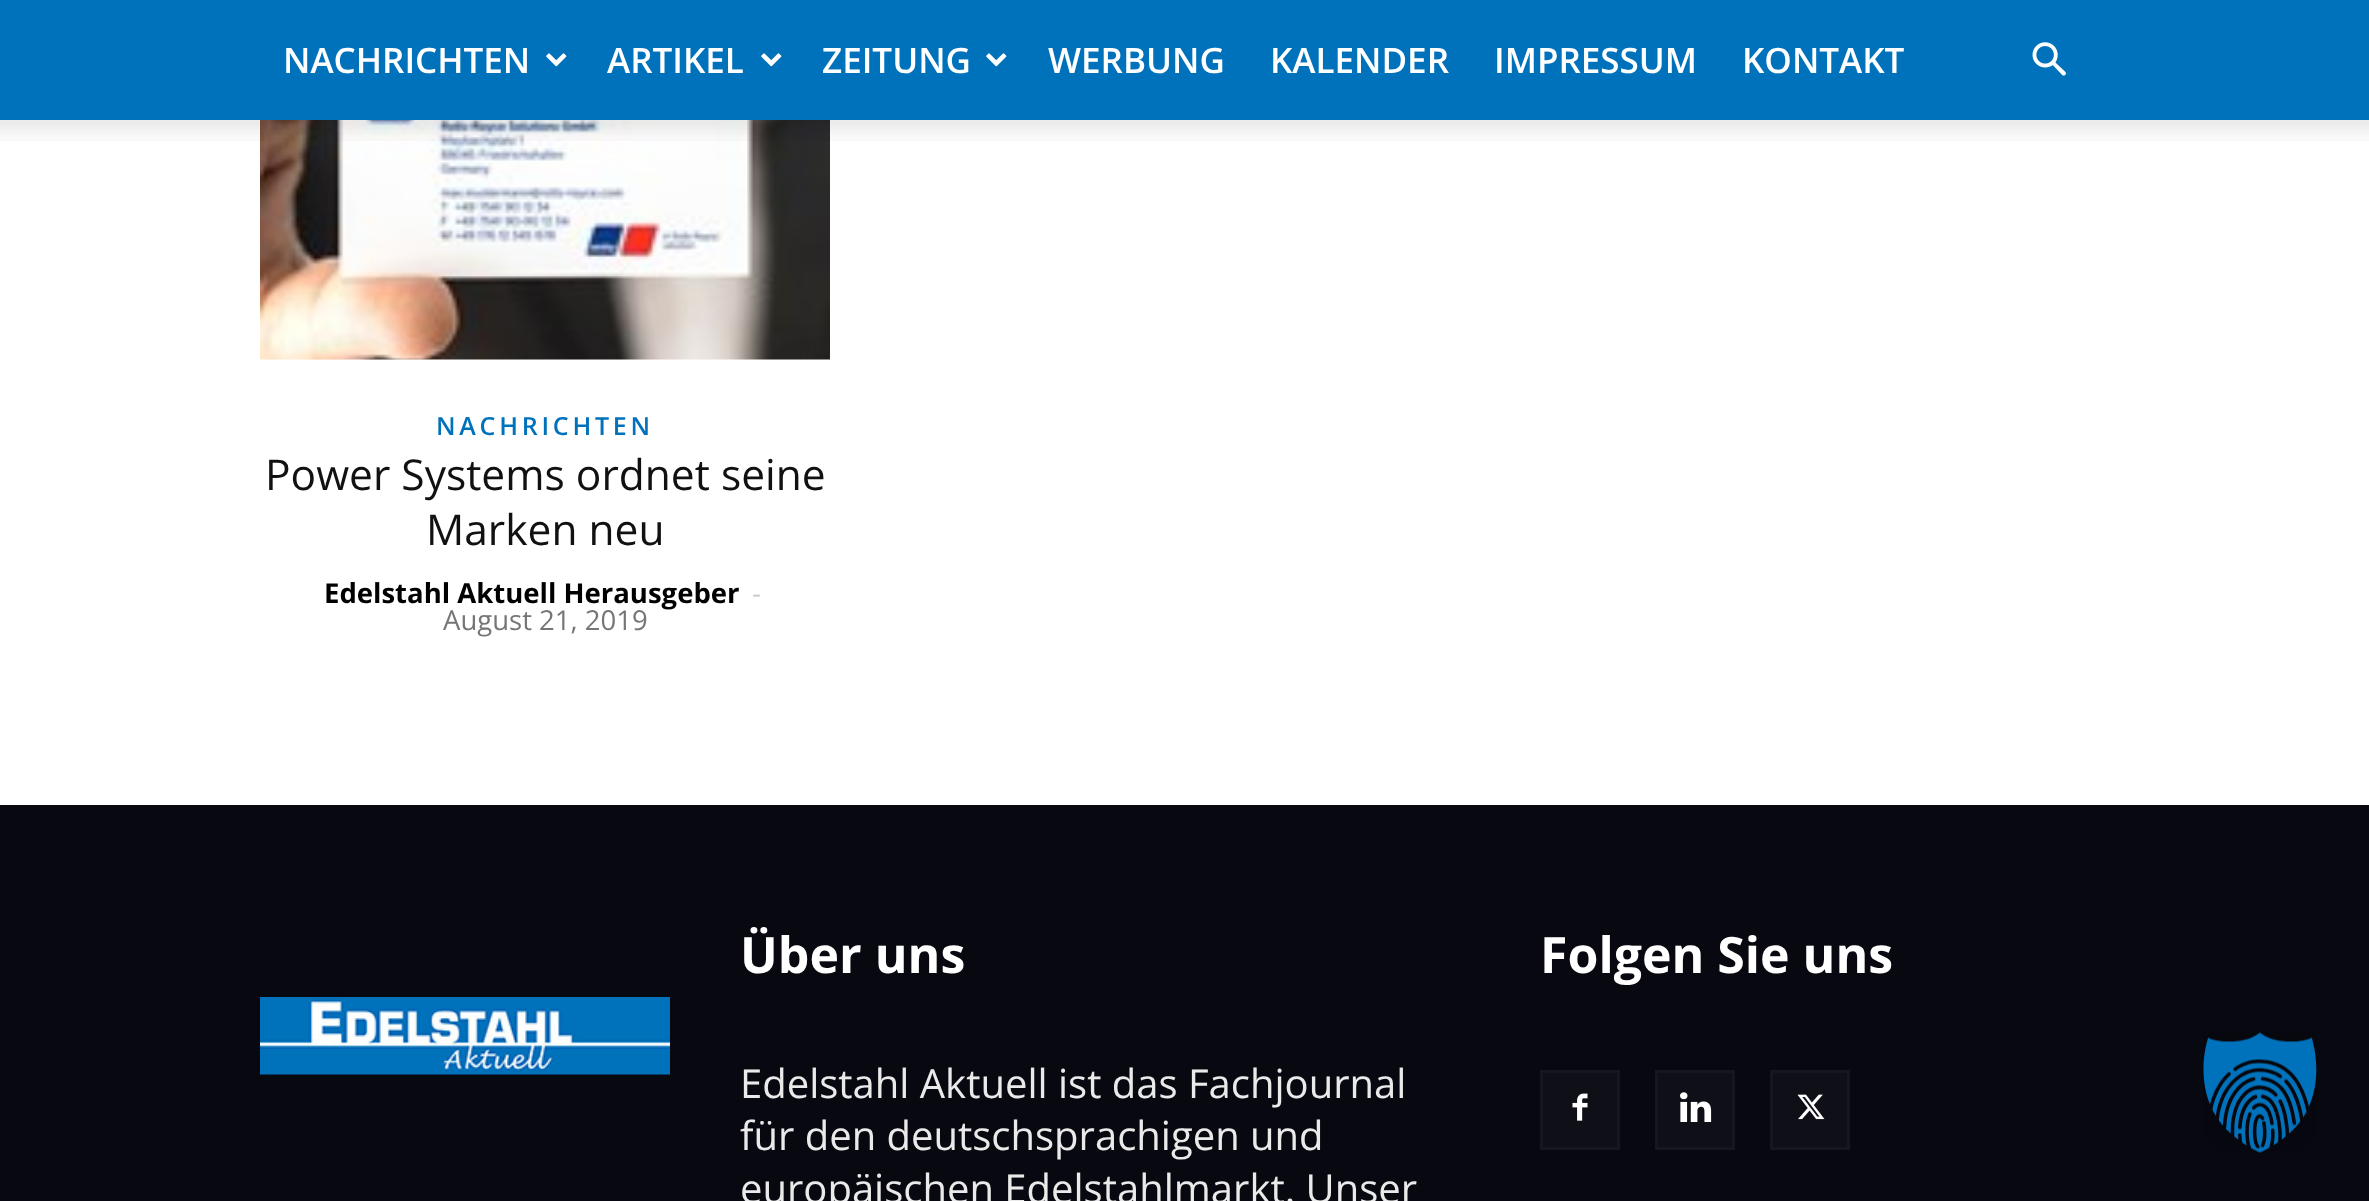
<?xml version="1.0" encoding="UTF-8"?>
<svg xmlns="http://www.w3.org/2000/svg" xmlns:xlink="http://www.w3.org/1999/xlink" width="2369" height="1201">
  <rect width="100%" height="100%" fill="#ffffff" />
  <rect width="2369" height="120" fill="#0072bb" />
  <image x="546" y="53" width="21" height="14" xlink:href="image1.png" />
  <image x="761" y="53" width="21" height="14" xlink:href="image1.png" />
  <image x="986" y="53" width="21" height="14" xlink:href="image1.png" />
  <image x="2032" y="42" width="34" height="34" xlink:href="image2.png" />
  <image x="260" y="120" width="570" height="240" xlink:href="image4.png" />
  <image x="0" y="120" width="2369" height="21" xlink:href="image3.png" />
  <rect y="805" width="2369" height="396" fill="#080810" />
  <rect x="1543" y="1073" width="74" height="74" fill="#0f0f17" />
  <image x="1572" y="1093" width="16" height="28" xlink:href="image5.png" />
  <rect x="1541.5" y="1071.5" width="77" height="77" fill="none" stroke="#16161e" stroke-width="3" />
  <rect x="1658" y="1073" width="74" height="74" fill="#0f0f17" />
  <image x="1680" y="1092" width="32" height="30" xlink:href="image6.png" />
  <rect x="1656.5" y="1071.5" width="77" height="77" fill="none" stroke="#16161e" stroke-width="3" />
  <rect x="1773" y="1073" width="74" height="74" fill="#0f0f17" />
  <image x="1797" y="1094" width="28" height="26" xlink:href="image7.png" />
  <rect x="1771.5" y="1071.5" width="77" height="77" fill="none" stroke="#16161e" stroke-width="3" />
  <image x="260" y="997" width="410" height="78" xlink:href="image8.png" />
  <image x="2203" y="1032" width="114" height="121" xlink:href="image9.png" />
  <text x="283" y="73" style="font-family: Open Sans; font-size: 35px; font-weight: 600; fill: #ffffff">NACHRICHTEN</text>
  <text x="607" y="73" style="font-family: Open Sans; font-size: 35px; font-weight: 600; fill: #ffffff">ARTIKEL</text>
  <text x="822" y="73" style="font-family: Open Sans; font-size: 35px; font-weight: 600; fill: #ffffff">ZEITUNG</text>
  <text x="1048" y="73" style="font-family: Open Sans; font-size: 35px; font-weight: 600; fill: #ffffff">WERBUNG</text>
  <text x="1270" y="73" style="font-family: Open Sans; font-size: 35px; font-weight: 600; fill: #ffffff">KALENDER</text>
  <text x="1494" y="73" style="font-family: Open Sans; font-size: 35px; font-weight: 600; fill: #ffffff">IMPRESSUM</text>
  <text x="1742" y="73" style="font-family: Open Sans; font-size: 35px; font-weight: 600; fill: #ffffff">KONTAKT</text>
  <text x="436" y="435" style="font-family: Open Sans; font-size: 25px; font-weight: 600; letter-spacing: 3.75px; fill: #0072bb">NACHRICHTEN</text>
  <text x="265" y="490" style="font-family: Open Sans; font-size: 42.5px; fill: #111111">Power Systems ordnet seine</text>
  <text x="426" y="545" style="font-family: Open Sans; font-size: 42.5px; fill: #111111">Marken neu</text>
  <text x="324" y="603" style="font-family: Open Sans; font-size: 27.5px; font-weight: bold; fill: #000000">Edelstahl Aktuell Herausgeber</text>
  <text x="752" y="603" style="font-family: Open Sans; font-size: 27.5px; fill: #cccccc">-</text>
  <text x="443" y="630" style="font-family: Open Sans; font-size: 27.5px; fill: #767676">August 21, 2019</text>
  <text x="740" y="973" style="font-family: Open Sans; font-size: 50px; font-weight: bold; fill: #ffffff">Über uns</text>
  <text x="740" y="1098" style="font-family: Open Sans; font-size: 40px; fill: #eaeaea">Edelstahl Aktuell ist das Fachjournal</text>
  <text x="740" y="1150" style="font-family: Open Sans; font-size: 40px; fill: #eaeaea">für den deutschsprachigen und</text>
  <text x="740" y="1203" style="font-family: Open Sans; font-size: 40px; fill: #eaeaea">europäischen Edelstahlmarkt. Unser</text>
  <text x="1540" y="973" style="font-family: Open Sans; font-size: 50px; font-weight: bold; fill: #ffffff">Folgen Sie uns</text>
</svg>
